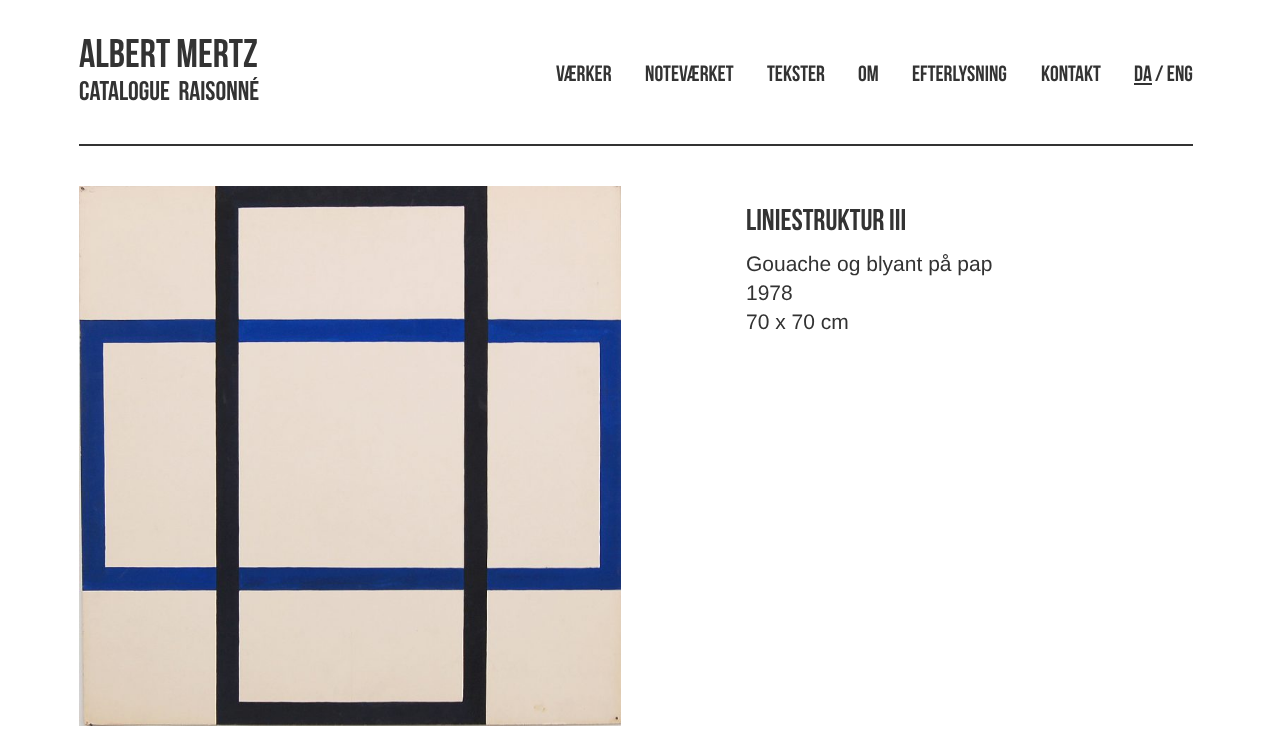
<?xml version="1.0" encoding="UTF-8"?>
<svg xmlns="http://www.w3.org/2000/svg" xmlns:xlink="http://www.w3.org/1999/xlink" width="1272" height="744">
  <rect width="100%" height="100%" fill="#ffffff" />
  <rect x="1134" y="83" width="18" height="2" fill="#333333" />
  <rect x="79" y="144" width="1114" height="2" fill="#333333" />
  <image x="79" y="186" width="542" height="540" xlink:href="image1.png" />
  <text x="79" y="67" style="font-family: Bebas Neue; font-size: 40px; font-weight: bold; fill: #333333">Albert Mertz</text>
  <text x="79" y="100" style="font-family: Bebas Neue; font-size: 27px; font-weight: bold; fill: #333333" xml:space="preserve">Catalogue  Raisonné</text>
  <text x="556" y="81" style="font-family: Bebas Neue; font-size: 22px; font-weight: bold; fill: #333333">Værker</text>
  <text x="645" y="81" style="font-family: Bebas Neue; font-size: 22px; font-weight: bold; fill: #333333">Noteværket</text>
  <text x="767" y="81" style="font-family: Bebas Neue; font-size: 22px; font-weight: bold; fill: #333333">Tekster</text>
  <text x="858" y="81" style="font-family: Bebas Neue; font-size: 22px; font-weight: bold; fill: #333333">Om</text>
  <text x="912" y="81" style="font-family: Bebas Neue; font-size: 22px; font-weight: bold; fill: #333333">Efterlysning</text>
  <text x="1041" y="81" style="font-family: Bebas Neue; font-size: 22px; font-weight: bold; fill: #333333">Kontakt</text>
  <text x="1134" y="81" style="font-family: Bebas Neue; font-size: 22px; font-weight: bold; fill: #333333">DA</text>
  <text x="1155" y="81" style="font-family: Bebas Neue; font-size: 22px; font-weight: bold; fill: #333333">/ ENG</text>
  <text x="746" y="230" style="font-family: Bebas Neue; font-size: 30px; font-weight: bold; fill: #333333">Liniestruktur III</text>
  <text x="746" y="271" style="font-family: Liberation Sans; font-size: 21px; fill: #333333">Gouache og blyant på pap</text>
  <text x="746" y="300" style="font-family: Liberation Sans; font-size: 21px; fill: #333333">1978</text>
  <text x="746" y="329" style="font-family: Liberation Sans; font-size: 21px; fill: #333333">70 x 70 cm</text>
</svg>
